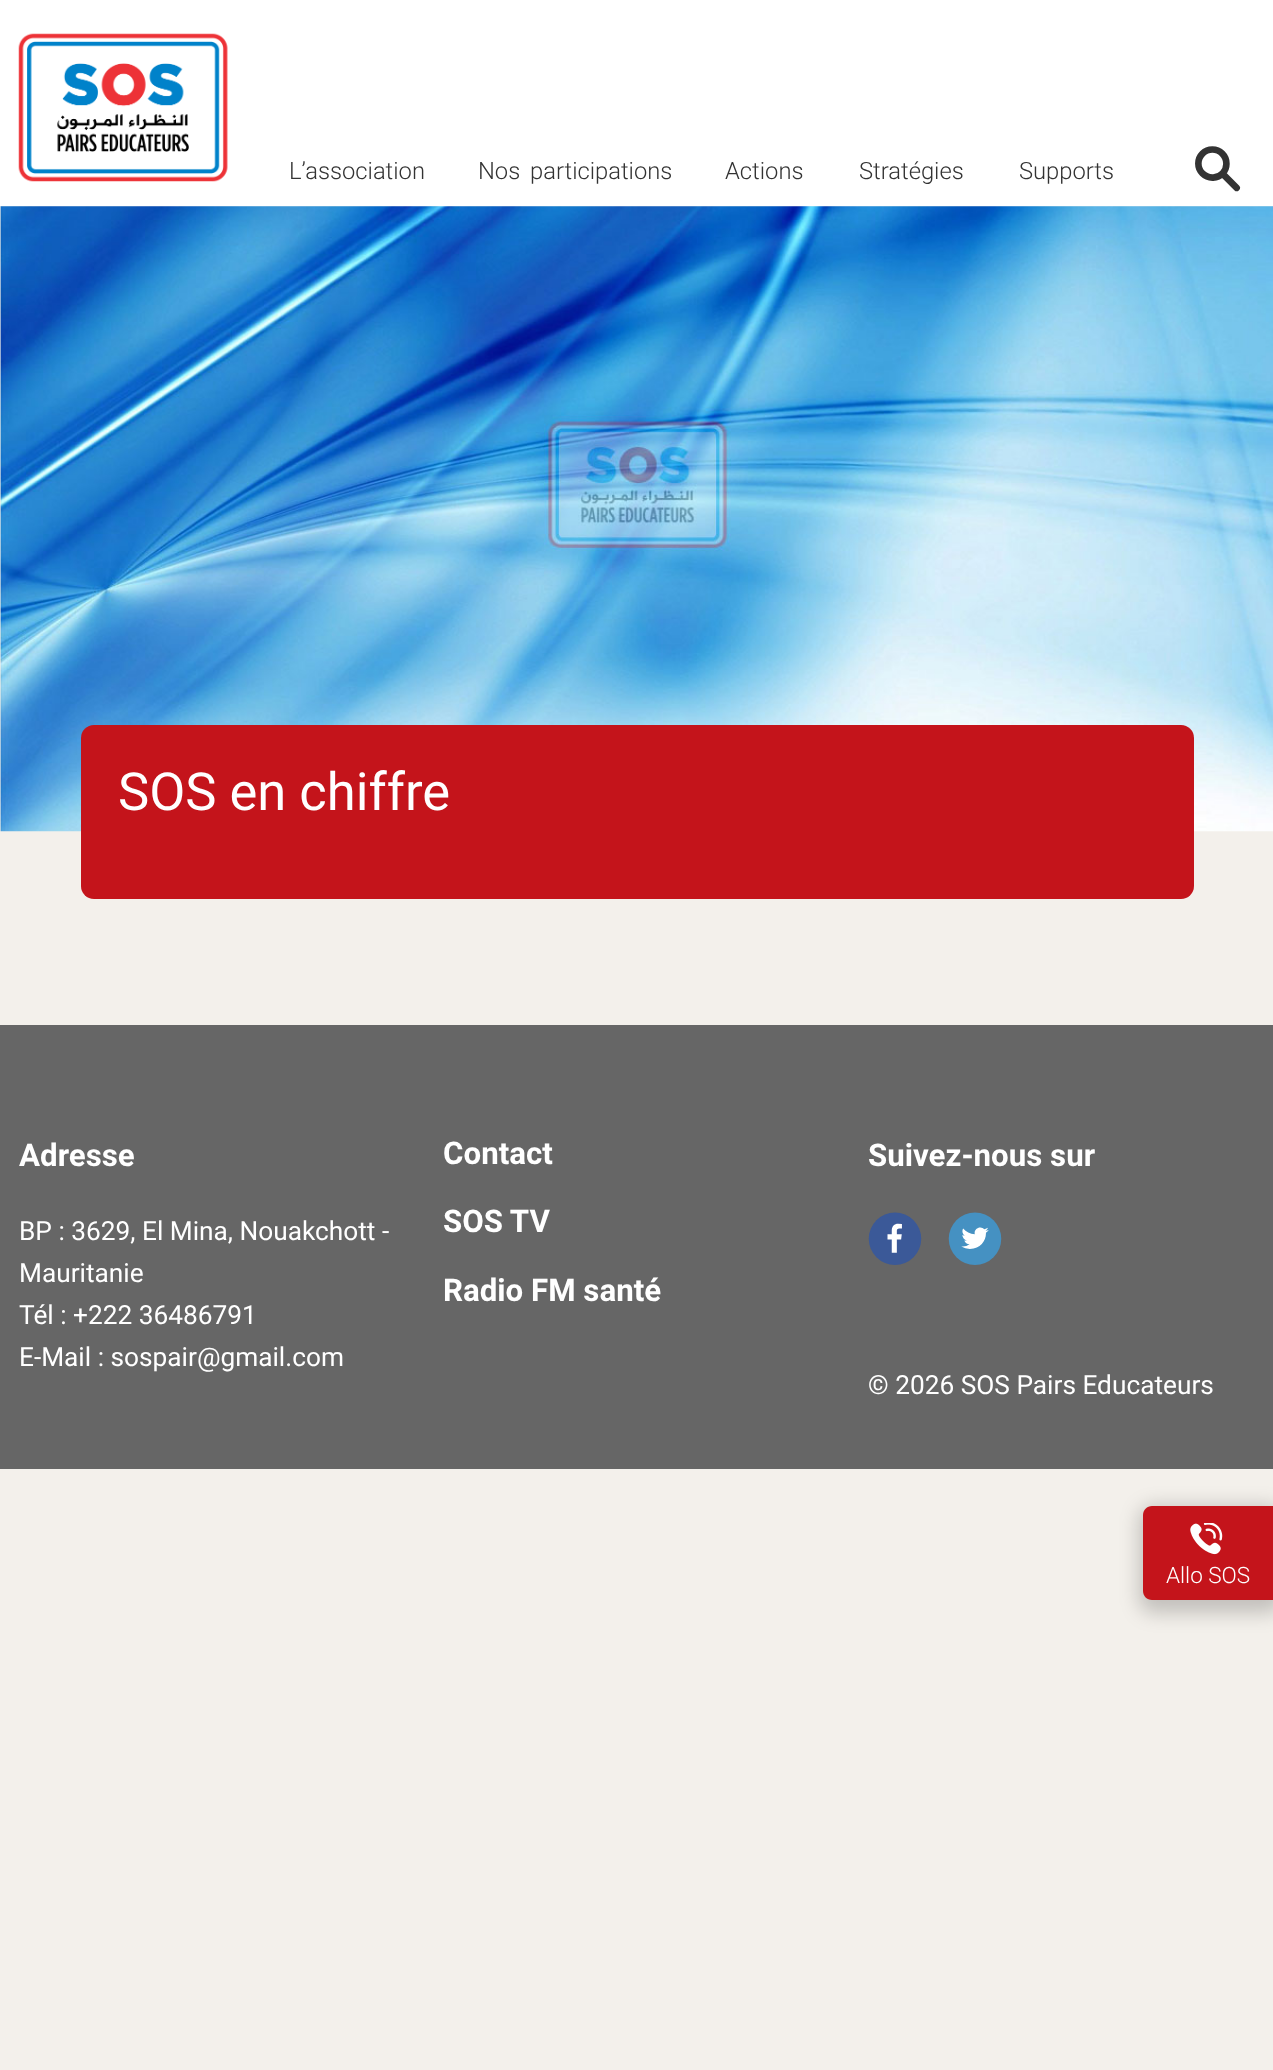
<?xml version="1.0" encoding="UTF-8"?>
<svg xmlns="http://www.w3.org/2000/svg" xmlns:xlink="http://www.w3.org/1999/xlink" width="1273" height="2070">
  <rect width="100%" height="100%" fill="#f3f0eb" />
  <rect width="1273" height="206" fill="#ffffff" />
  <image x="18" y="33" width="210" height="149" xlink:href="image1.png" />
  <image x="1195" y="146" width="46" height="46" xlink:href="image2.png" />
  <image x="0" y="206" width="1273" height="626" xlink:href="image3.png" />
  <rect x="81" y="725" width="1113" height="174" rx="13" fill="#c4141b" />
  <rect y="1025" width="1273" height="444" fill="#666666" />
  <image x="868" y="1212" width="54" height="53" xlink:href="image4.png" />
  <image x="948" y="1212" width="54" height="53" xlink:href="image5.png" />
  <rect x="1139" y="1506" width="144" height="107" rx="15" fill="#000000" fill-opacity="0.2" filter="blur(9.5px)" />
  <path d="M 1152 1506 h 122 v 94 h -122 c -5 0 -9 -4 -9 -9 v -76 c 0 -5 4 -9 9 -9 z" fill="#c4141b" />
  <image x="1190" y="1523" width="33" height="32" xlink:href="image6.png" />
  <text x="289" y="179" style="font-family: Roboto; font-size: 23.75px; font-weight: 300; fill: #333333">L’association</text>
  <text x="478" y="179" word-spacing="4" style="font-family: Roboto; font-size: 23.75px; font-weight: 300; fill: #333333">Nos participations</text>
  <text x="725" y="179" style="font-family: Roboto; font-size: 23.75px; font-weight: 300; fill: #333333">Actions</text>
  <text x="859" y="179" style="font-family: Roboto; font-size: 23.75px; font-weight: 300; fill: #333333">Stratégies</text>
  <text x="1019" y="179" style="font-family: Roboto; font-size: 23.75px; font-weight: 300; fill: #333333">Supports</text>
  <text x="118" y="810" style="font-family: Roboto; font-size: 52.5px; fill: #ffffff">SOS en chiffre</text>
  <text x="19" y="1166" style="font-family: Roboto; font-size: 31.25px; font-weight: bold; fill: #ffffff">Adresse</text>
  <text x="19" y="1240" style="font-family: Roboto; font-size: 26.25px; fill: #ffffff">BP : 3629, El Mina, Nouakchott -</text>
  <text x="19" y="1282" style="font-family: Roboto; font-size: 26.25px; fill: #ffffff">Mauritanie</text>
  <text x="19" y="1324" style="font-family: Roboto; font-size: 26.25px; fill: #ffffff">Tél : +222 36486791</text>
  <text x="19" y="1366" style="font-family: Roboto; font-size: 26.25px; fill: #ffffff">E-Mail : sospair@gmail.com</text>
  <text x="443" y="1164" style="font-family: Roboto; font-size: 31.25px; font-weight: bold; fill: #ffffff">Contact</text>
  <text x="443" y="1232" style="font-family: Roboto; font-size: 31.25px; font-weight: bold; fill: #ffffff">SOS TV</text>
  <text x="443" y="1301" style="font-family: Roboto; font-size: 31.25px; font-weight: bold; fill: #ffffff">Radio FM santé</text>
  <text x="868" y="1166" style="font-family: Roboto; font-size: 31.25px; font-weight: bold; fill: #ffffff">Suivez-nous sur</text>
  <text x="868" y="1394" style="font-family: Roboto; font-size: 26.25px; fill: #ffffff">© 2026 SOS Pairs Educateurs</text>
  <text x="1166" y="1583" style="font-family: Roboto; font-size: 22.5px; font-weight: 300; fill: #ffffff">Allo SOS</text>
</svg>
